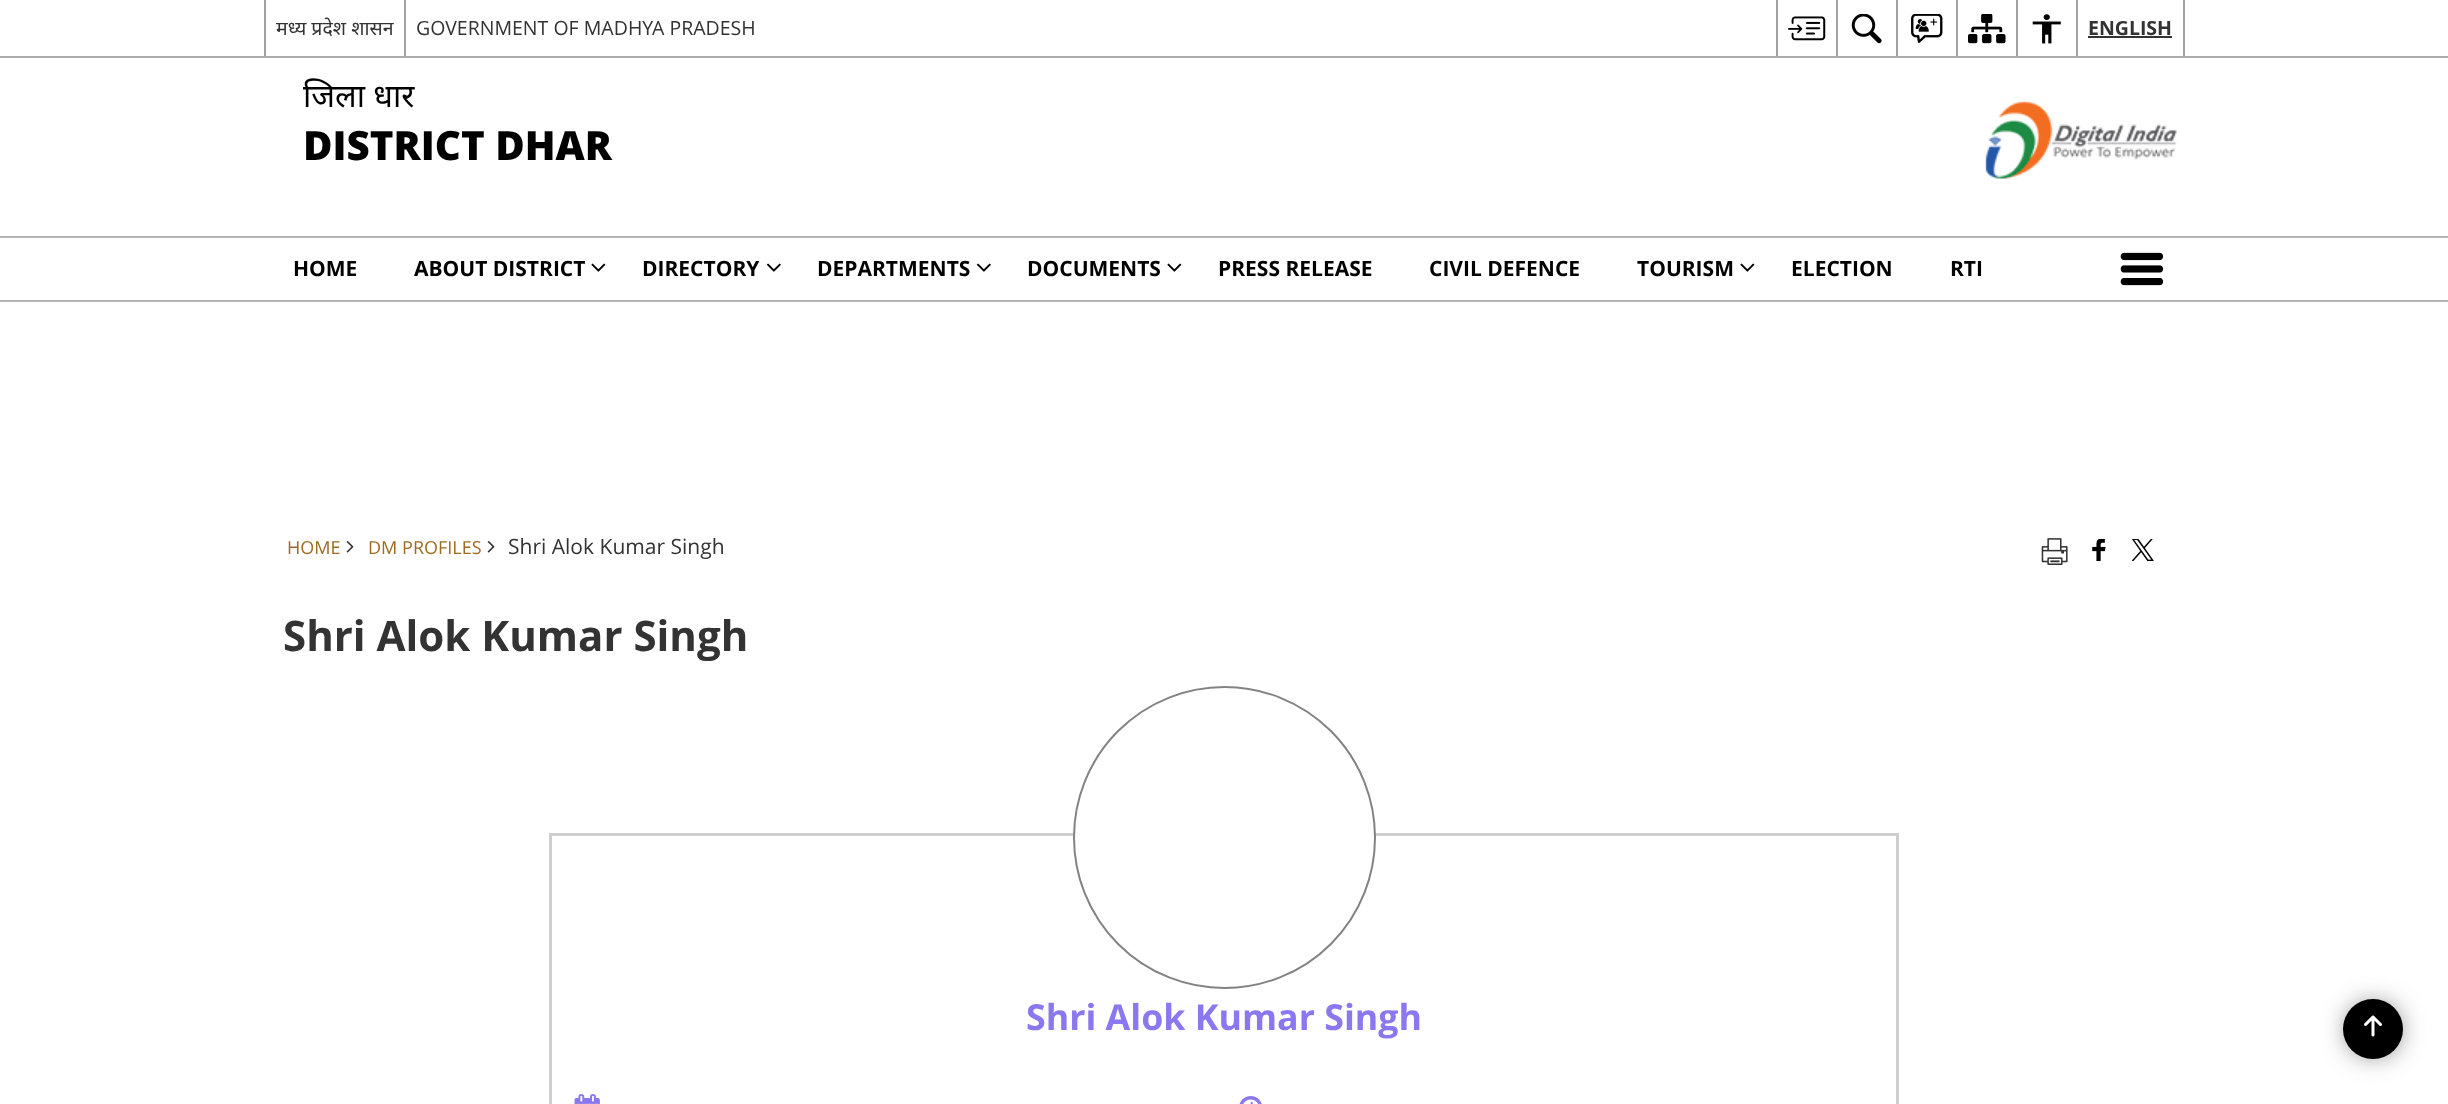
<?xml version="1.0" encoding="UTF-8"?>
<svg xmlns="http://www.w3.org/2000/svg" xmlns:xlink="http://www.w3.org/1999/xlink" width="2448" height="1104">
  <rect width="100%" height="100%" fill="#ffffff" />
  <rect y="56" width="2448" height="2" fill="#ababab" />
  <rect x="264" width="2" height="56" fill="#a3a3a3" />
  <rect x="404" width="2" height="56" fill="#a3a3a3" />
  <rect x="1776" width="2" height="56" fill="#a3a3a3" />
  <image x="1788" y="16" width="38" height="25" xlink:href="image1.png" />
  <rect x="1836" width="2" height="56" fill="#a3a3a3" />
  <image x="1851" y="14" width="31" height="30" xlink:href="image2.png" />
  <rect x="1896" width="2" height="56" fill="#a3a3a3" />
  <image x="1911" y="14" width="32" height="29" xlink:href="image3.png" />
  <rect x="1956" width="2" height="56" fill="#a3a3a3" />
  <image x="1968" y="14" width="38" height="30" xlink:href="image4.png" />
  <rect x="2016" width="2" height="56" fill="#a3a3a3" />
  <image x="2032" y="14" width="29" height="30" xlink:href="image5.png" />
  <rect x="2183" width="2" height="56" fill="#a3a3a3" />
  <rect x="2076" width="2" height="56" fill="#a3a3a3" />
  <rect x="2088" y="36" width="84" height="2" fill="#333333" />
  <image x="1985" y="101" width="192" height="78" xlink:href="image6.png" />
  <rect y="236" width="2448" height="2" fill="#b3b3b3" />
  <rect y="300" width="2448" height="2" fill="#b3b3b3" />
  <image x="591" y="263" width="15" height="9" xlink:href="image7.png" />
  <image x="766" y="263" width="15" height="9" xlink:href="image8.png" />
  <image x="976" y="263" width="15" height="9" xlink:href="image8.png" />
  <image x="1167" y="263" width="15" height="9" xlink:href="image7.png" />
  <image x="1740" y="263" width="15" height="9" xlink:href="image7.png" />
  <image x="2120" y="252" width="44" height="34" xlink:href="image9.png" />
  <image x="346" y="541" width="8" height="12" xlink:href="image10.png" />
  <image x="487" y="541" width="8" height="12" xlink:href="image10.png" />
  <image x="2041" y="538" width="27" height="27" xlink:href="image11.png" />
  <image x="2092" y="539" width="14" height="22" xlink:href="image12.png" />
  <image x="2132" y="539" width="22" height="22" xlink:href="image13.png" />
  <rect x="550.5" y="834.5" width="1347" height="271" fill="none" stroke="#cecece" stroke-width="3" />
  <circle cx="1224.5" cy="837.5" r="150.5" fill="#ffffff" stroke="#838383" stroke-width="2" />
  <image x="574" y="1094" width="26" height="10" xlink:href="image14.png" />
  <image x="1239" y="1096" width="23" height="8" xlink:href="image15.png" />
  <rect x="2351" y="1007" width="45" height="45" rx="22.5" fill="#3c3c3c" filter="blur(14px)" />
  <circle cx="2373" cy="1029" r="30" fill="#000000" />
  <image x="2364" y="1015" width="18" height="22" xlink:href="image16.png" />
  <text x="276" y="35" style="font-family: Noto Sans; font-size: 19.5px; fill: #333333">मध्य प्रदेश शासन</text>
  <text x="416" y="35" style="font-family: Open Sans; font-size: 19.5px; fill: #333333">GOVERNMENT OF MADHYA PRADESH</text>
  <text x="2088" y="35" style="font-family: Open Sans; font-size: 19.5px; font-weight: bold; fill: #333333">ENGLISH</text>
  <text x="303" y="107" style="font-family: Noto Sans; font-size: 32px; fill: #000000">जिला धार</text>
  <text x="303" y="160" style="font-family: Open Sans; font-size: 40.25px; font-weight: 800; fill: #000000">DISTRICT DHAR</text>
  <text x="293" y="276" style="font-family: Open Sans; font-size: 21px; font-weight: bold; fill: #000000">HOME</text>
  <text x="414" y="276" style="font-family: Open Sans; font-size: 21px; font-weight: bold; fill: #000000">ABOUT DISTRICT</text>
  <text x="642" y="276" style="font-family: Open Sans; font-size: 21px; font-weight: bold; fill: #000000">DIRECTORY</text>
  <text x="817" y="276" style="font-family: Open Sans; font-size: 21px; font-weight: bold; fill: #000000">DEPARTMENTS</text>
  <text x="1027" y="276" style="font-family: Open Sans; font-size: 21px; font-weight: bold; fill: #000000">DOCUMENTS</text>
  <text x="1218" y="276" style="font-family: Open Sans; font-size: 21px; font-weight: bold; fill: #000000">PRESS RELEASE</text>
  <text x="1429" y="276" style="font-family: Open Sans; font-size: 21px; font-weight: bold; fill: #000000">CIVIL DEFENCE</text>
  <text x="1637" y="276" style="font-family: Open Sans; font-size: 21px; font-weight: bold; fill: #000000">TOURISM</text>
  <text x="1791" y="276" style="font-family: Open Sans; font-size: 21px; font-weight: bold; fill: #000000">ELECTION</text>
  <text x="1950" y="276" style="font-family: Open Sans; font-size: 21px; font-weight: bold; fill: #000000">RTI</text>
  <text x="287" y="554" style="font-family: Open Sans; font-size: 18px; fill: #9e6b22">HOME</text>
  <text x="368" y="554" style="font-family: Open Sans; font-size: 18px; fill: #9e6b22">DM PROFILES</text>
  <text x="508" y="554" style="font-family: Open Sans; font-size: 21px; fill: #333333">Shri Alok Kumar Singh</text>
  <text x="283" y="651" style="font-family: Open Sans; font-size: 42px; font-weight: bold; fill: #333333">Shri Alok Kumar Singh</text>
  <text x="1026" y="1030" style="font-family: Open Sans; font-size: 35.75px; font-weight: bold; fill: #8b77ef">Shri Alok Kumar Singh</text>
</svg>
